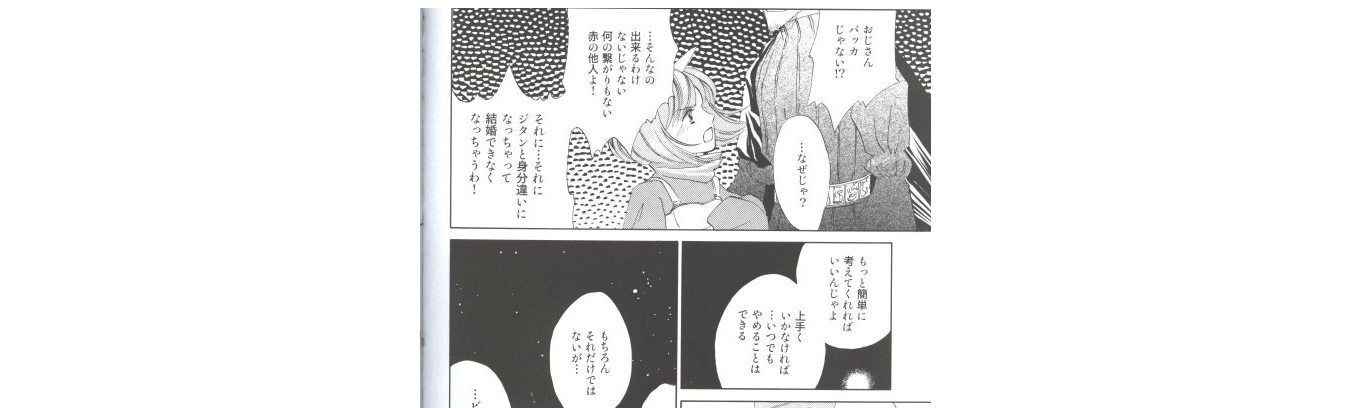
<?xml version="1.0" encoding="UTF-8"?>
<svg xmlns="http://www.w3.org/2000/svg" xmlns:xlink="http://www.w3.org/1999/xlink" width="1351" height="408">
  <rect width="100%" height="100%" fill="#ffffff" />
  <image x="420" y="8" width="511" height="400" xlink:href="image1.png" />
</svg>
